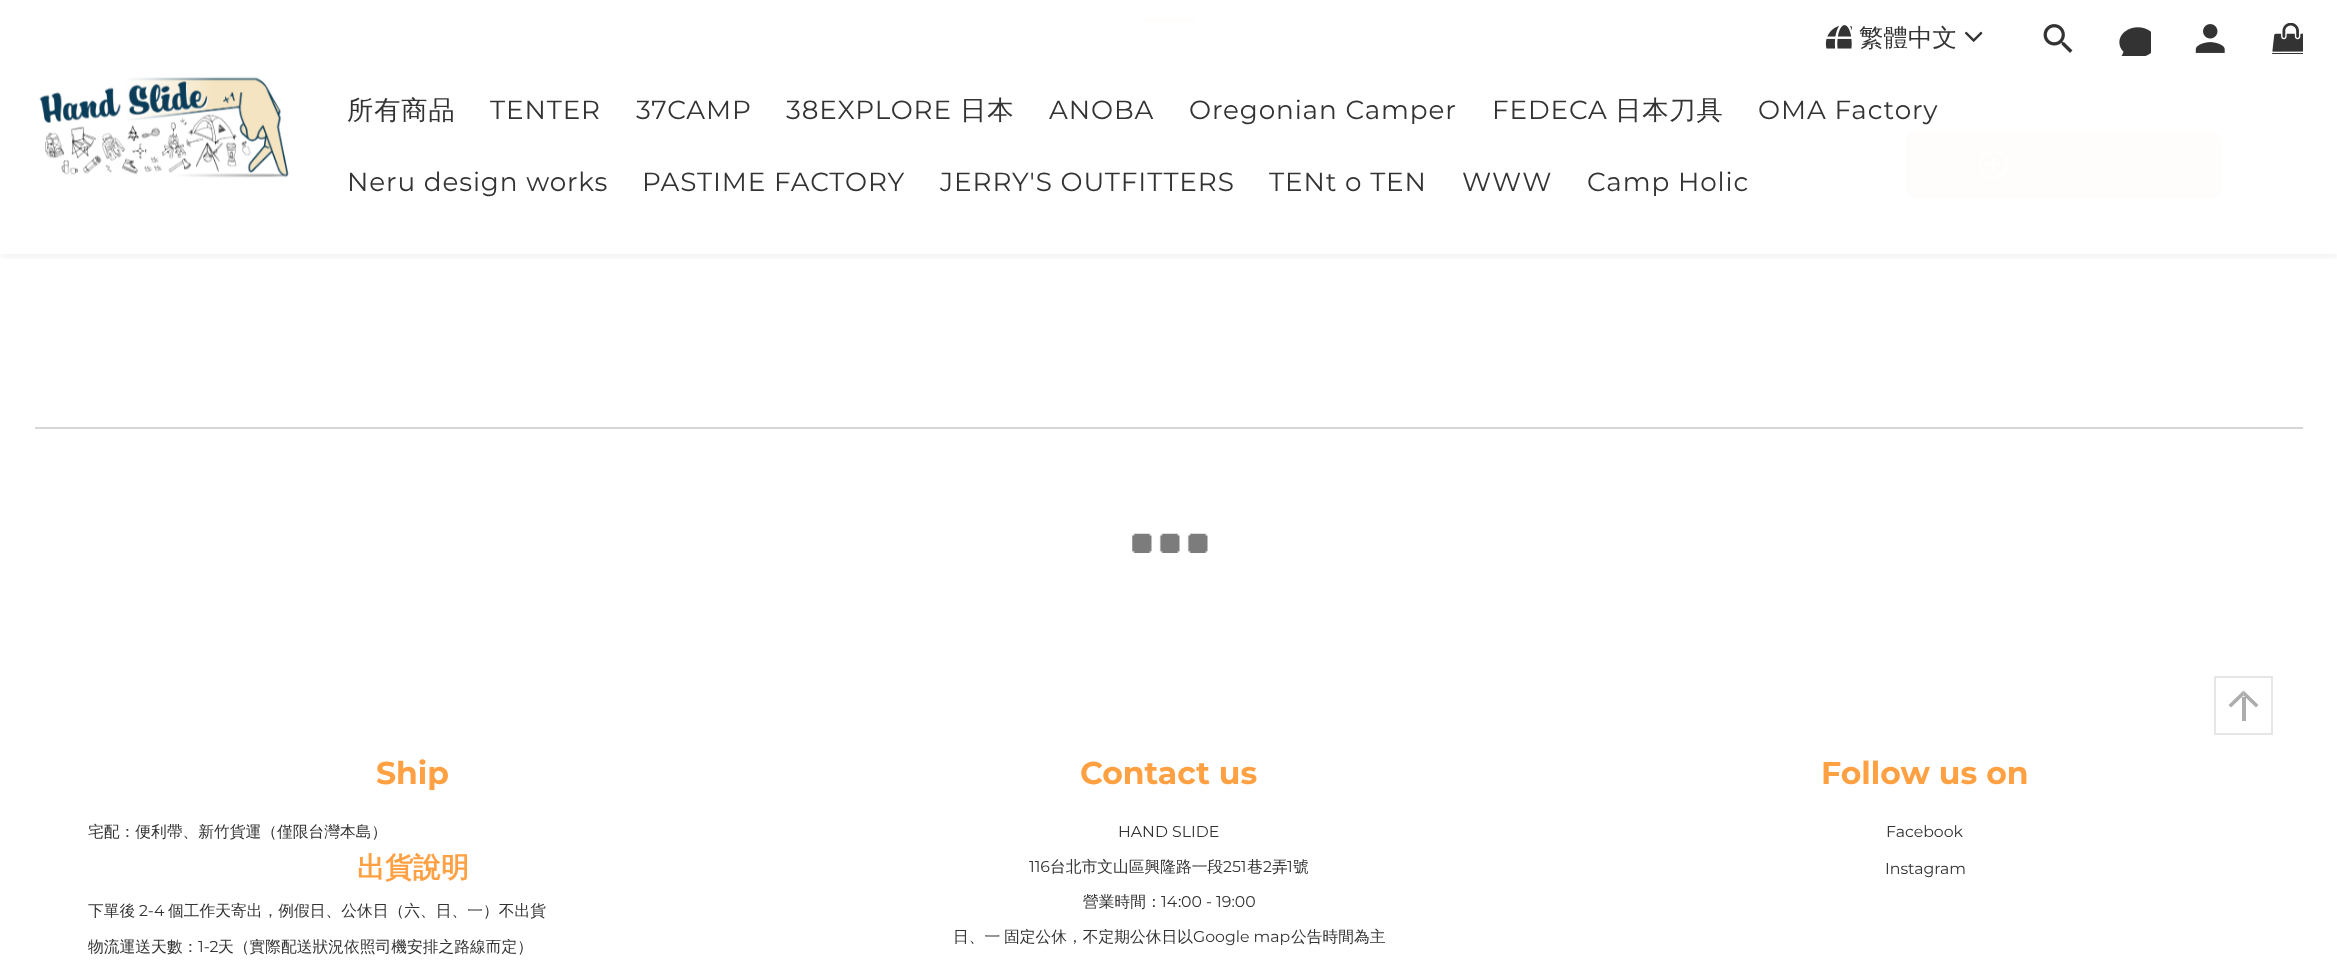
<?xml version="1.0" encoding="UTF-8"?>
<svg xmlns="http://www.w3.org/2000/svg" xmlns:xlink="http://www.w3.org/1999/xlink" width="2337" height="962">
  <defs>
    <clipPath id="clip1"><rect x="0" y="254" width="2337" height="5" /></clipPath>
  </defs>
  <rect width="100%" height="100%" fill="#ffffff" />
  <rect x="1143" y="18" width="52" height="5" fill="#c19c5c" />
  <rect x="1907" y="132" width="313" height="65" rx="8" fill="#c19c5c" stroke="#c19c5c" stroke-width="2" />
  <image x="1979" y="151" width="28" height="28" xlink:href="image1.png" />
  <g clip-path="url(#clip1)">
    <rect y="4" width="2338" height="253" fill="#000000" fill-opacity="0.06" filter="blur(5px)" />
  </g>
  <rect x="7" y="18" width="2324" height="236" fill="#ffffff" fill-opacity="0.98" />
  <image x="1825" y="25" width="27" height="24" xlink:href="image2.png" />
  <image x="1964" y="31" width="19" height="11" xlink:href="image3.png" />
  <image x="2043" y="24" width="30" height="29" xlink:href="image4.png" />
  <image x="2119" y="27" width="32" height="29" xlink:href="image5.png" />
  <image x="2195" y="24" width="30" height="29" xlink:href="image6.png" />
  <image x="2272" y="23" width="31" height="31" xlink:href="image7.png" />
  <image x="39" y="77" width="250" height="101" xlink:href="image8.png" />
  <rect x="2215" y="677" width="57" height="57" fill="none" stroke="#e6e6e6" stroke-width="2" />
  <path d="M 2243.5 690.5 l 15 14.5 l -2.5 2.5 l -12.5 -12 z" fill="#adadad" />
  <path d="M 2228.5 705 l 15 -14.5 v 5 l -12.5 12 z" fill="#999999" fill-opacity="0.8" />
  <rect x="2242" y="697" width="4" height="24" fill="#999999" fill-opacity="0.8" />
  <rect x="35" y="427" width="2268" height="2" fill="#d6d6d6" />
  <image x="1132" y="533" width="76" height="20" xlink:href="image9.png" />
  <text x="1859" y="46" style="font-family: WenQuanYi Zen Hei; font-size: 24.5px; font-weight: 500; fill: #333333">繁體中文</text>
  <text x="347" y="119" style="font-family: WenQuanYi Zen Hei; font-size: 26.25px; font-weight: 500; letter-spacing: 0.9px; fill: #333333">所有商品</text>
  <text x="490" y="119" style="font-family: Montserrat; font-size: 26.25px; letter-spacing: 0.9px; fill: #333333">TENTER</text>
  <text x="636" y="119" style="font-family: Montserrat; font-size: 26.25px; letter-spacing: 0.9px; fill: #333333">37CAMP</text>
  <text x="786" y="119" style="font-family: Montserrat; font-size: 26.25px; letter-spacing: 0.9px; fill: #333333">38EXPLORE</text>
  <text x="960" y="119" style="font-family: WenQuanYi Zen Hei; font-size: 26.25px; font-weight: 500; letter-spacing: 0.9px; fill: #333333">日本</text>
  <text x="1049" y="119" style="font-family: Montserrat; font-size: 26.25px; letter-spacing: 0.9px; fill: #333333">ANOBA</text>
  <text x="1189" y="119" style="font-family: Montserrat; font-size: 26.25px; letter-spacing: 0.9px; fill: #333333">Oregonian Camper</text>
  <text x="1492" y="119" style="font-family: Montserrat; font-size: 26.25px; letter-spacing: 0.9px; fill: #333333">FEDECA</text>
  <text x="1615" y="119" style="font-family: WenQuanYi Zen Hei; font-size: 26.25px; font-weight: 500; letter-spacing: 0.9px; fill: #333333">日本刀具</text>
  <text x="1758" y="119" style="font-family: Montserrat; font-size: 26.25px; letter-spacing: 0.9px; fill: #333333">OMA Factory</text>
  <text x="347" y="191" style="font-family: Montserrat; font-size: 26.25px; letter-spacing: 0.9px; fill: #333333">Neru design works</text>
  <text x="642" y="191" style="font-family: Montserrat; font-size: 26.25px; letter-spacing: 0.9px; fill: #333333">PASTIME FACTORY</text>
  <text x="940" y="191" style="font-family: Montserrat; font-size: 26.25px; letter-spacing: 0.9px; fill: #333333">JERRY'S OUTFITTERS</text>
  <text x="1269" y="191" style="font-family: Montserrat; font-size: 26.25px; letter-spacing: 0.9px; fill: #333333">TENt o TEN</text>
  <text x="1462" y="191" style="font-family: Montserrat; font-size: 26.25px; letter-spacing: 0.9px; fill: #333333">WWW</text>
  <text x="1587" y="191" style="font-family: Montserrat; font-size: 26.25px; letter-spacing: 0.9px; fill: #333333">Camp Holic</text>
  <text x="376" y="784" style="font-family: Montserrat; font-size: 31.5px; font-weight: bold; fill: #ffa042">Ship</text>
  <text x="88" y="837" style="font-family: WenQuanYi Zen Hei; font-size: 15.75px; font-weight: 500; fill: #333333">宅配：便利帶、新竹貨運（僅限台灣本島）</text>
  <text x="357" y="877" style="font-family: WenQuanYi Zen Hei; font-size: 28px; font-weight: bold; fill: #ffa042">出貨說明</text>
  <text x="88" y="916" style="font-family: WenQuanYi Zen Hei; font-size: 15.75px; font-weight: 500; fill: #333333">下單後</text>
  <text x="139" y="916" style="font-family: Montserrat; font-size: 15.75px; fill: #333333">2-4</text>
  <text x="168" y="916" style="font-family: WenQuanYi Zen Hei; font-size: 15.75px; font-weight: 500; fill: #333333">個工作天寄出，例假日、公休日（六、日、一）不出貨</text>
  <text x="88" y="952" style="font-family: WenQuanYi Zen Hei; font-size: 15.75px; font-weight: 500; fill: #333333">物流運送天數：</text>
  <text x="198" y="952" style="font-family: Montserrat; font-size: 15.75px; fill: #333333">1-2</text>
  <text x="218" y="952" style="font-family: WenQuanYi Zen Hei; font-size: 15.75px; font-weight: 500; fill: #333333">天（實際配送狀況依照司機安排之路線而定）</text>
  <text x="1080" y="784" style="font-family: Montserrat; font-size: 31.5px; font-weight: bold; fill: #ffa042">Contact us</text>
  <text x="1118" y="837" style="font-family: Montserrat; font-size: 15.75px; fill: #333333">HAND SLIDE</text>
  <text x="1029" y="872" style="font-family: Montserrat; font-size: 15.75px; fill: #333333">116</text>
  <text x="1050" y="872" style="font-family: WenQuanYi Zen Hei; font-size: 15.75px; font-weight: 500; fill: #333333">台北市文山區興隆路一段</text>
  <text x="1223" y="872" style="font-family: Montserrat; font-size: 15.75px; fill: #333333">251</text>
  <text x="1247" y="872" style="font-family: WenQuanYi Zen Hei; font-size: 15.75px; font-weight: 500; fill: #333333">巷</text>
  <text x="1263" y="872" style="font-family: Montserrat; font-size: 15.75px; fill: #333333">2</text>
  <text x="1272" y="872" style="font-family: WenQuanYi Zen Hei; font-size: 15.75px; font-weight: 500; fill: #333333">弄</text>
  <text x="1287" y="872" style="font-family: Montserrat; font-size: 15.75px; fill: #333333">1</text>
  <text x="1293" y="872" style="font-family: WenQuanYi Zen Hei; font-size: 15.75px; font-weight: 500; fill: #333333">號</text>
  <text x="1083" y="907" style="font-family: WenQuanYi Zen Hei; font-size: 15.75px; font-weight: 500; fill: #333333">營業時間：</text>
  <text x="1161" y="907" style="font-family: Montserrat; font-size: 15.75px; fill: #333333">14</text>
  <text x="1178" y="907" style="font-family: Montserrat; font-size: 15.75px; fill: #000000">:</text>
  <text x="1181" y="907" style="font-family: Montserrat; font-size: 15.75px; fill: #333333">00 - 19:00</text>
  <text x="953" y="942" style="font-family: WenQuanYi Zen Hei; font-size: 15.75px; font-weight: 500; fill: #333333">日、一</text>
  <text x="1004" y="942" style="font-family: WenQuanYi Zen Hei; font-size: 15.75px; font-weight: 500; fill: #333333">固定公休，不定期公休日以</text>
  <text x="1193" y="942" style="font-family: Montserrat; font-size: 15.75px; fill: #333333">Google map</text>
  <text x="1291" y="942" style="font-family: WenQuanYi Zen Hei; font-size: 15.75px; font-weight: 500; fill: #333333">公告時間為主</text>
  <text x="1821" y="784" style="font-family: Montserrat; font-size: 31.5px; font-weight: bold; fill: #ffa042">Follow us on</text>
  <text x="1886" y="837" style="font-family: Montserrat; font-size: 15.75px; fill: #333333">Facebook</text>
  <text x="1885" y="874" style="font-family: Montserrat; font-size: 15.75px; fill: #333333">Instagram</text>
</svg>
